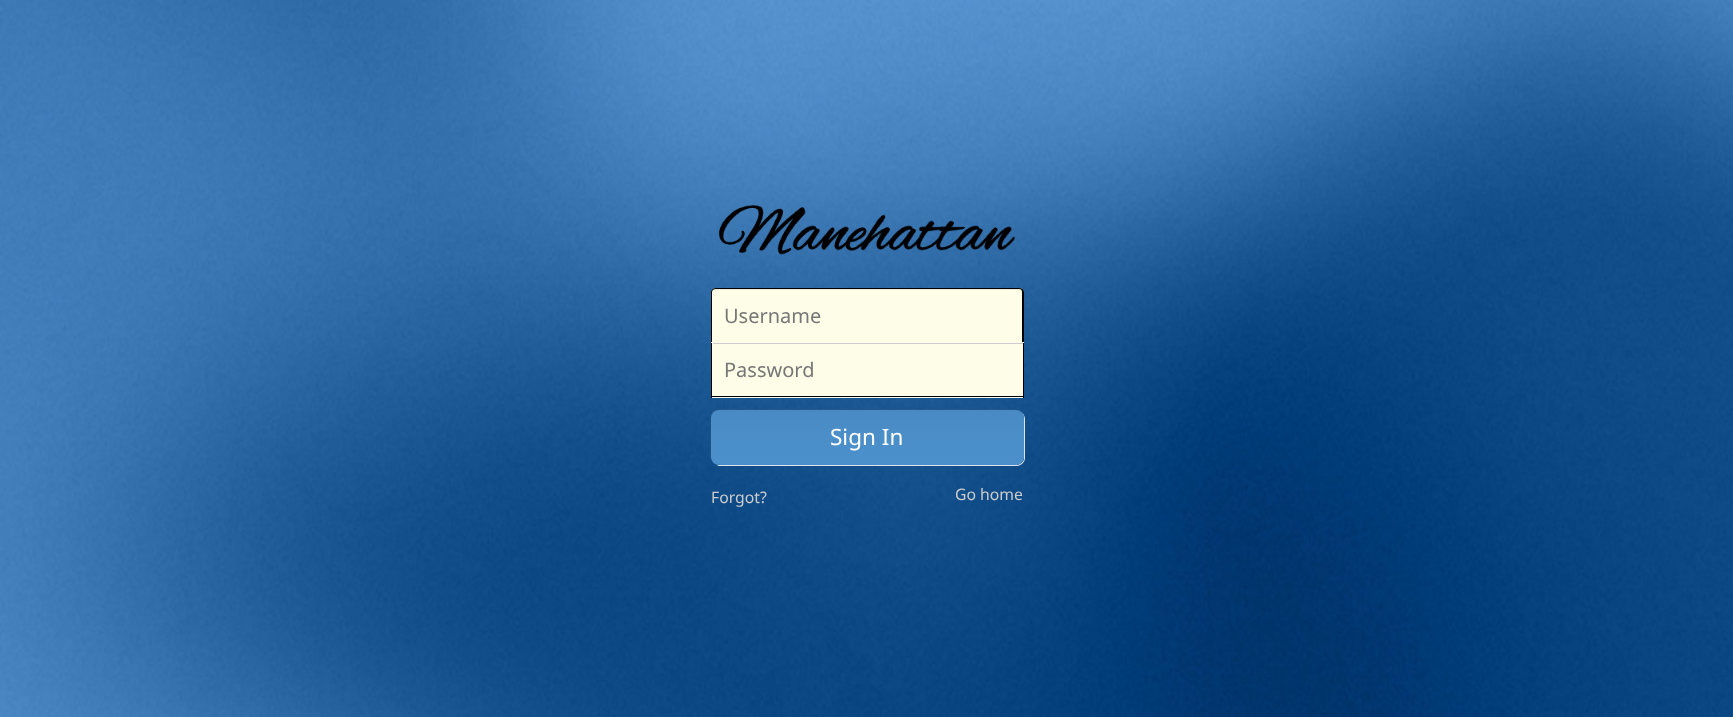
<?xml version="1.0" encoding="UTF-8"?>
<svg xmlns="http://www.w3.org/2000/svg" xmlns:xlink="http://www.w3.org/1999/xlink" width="1733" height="717">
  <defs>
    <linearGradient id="g1" gradientUnits="userSpaceOnUse" x1="868" y1="465" x2="868" y2="410"><stop offset="0" stop-color="#ebebeb" stop-opacity="0.05" /><stop offset="1" stop-color="#7f7f7f" stop-opacity="0.1" /></linearGradient>
  </defs>
  <rect width="100%" height="100%" fill="#ffffff" />
  <image x="0" y="0" width="1733" height="717" xlink:href="image1.png" />
  <image x="718" y="205" width="297" height="50" xlink:href="image2.png" />
  <path d="M 716 288 h 303 c 3 0 5 2 5 5 v 50 h -313 v -50 c 0 -3 2 -5 5 -5 z" fill="#fefde7" />
  <path d="M 716 290 h 303 c 2 0 3 2 3 4 v 49 h 1 v -50 c 0 -2 -2 -4 -4 -4 h -302 c -1 0 -3 1 -3 2 z" fill="#ebead6" />
  <path d="M 716 288 h 303 c 3 0 5 2 5 4 v 50 h -313 v -50 c 0 -2 2 -4 5 -4 z m 0 1 h 303 c 2 0 3 1 3 3 v 50 h -310 v -50 c 0 -2 2 -3 4 -3 z" fill="#000000" fill-rule="evenodd" />
  <rect x="712" y="343" width="311" height="55" fill="#fefde7" />
  <rect x="713" y="343" width="310" height="1" fill="#cccccc" />
  <rect x="1023" y="343" width="1" height="55" fill="#000000" />
  <rect x="711" y="396" width="313" height="1" fill="#000000" />
  <rect x="711" y="343" width="1" height="55" fill="#000000" />
  <path d="M 717 465 c 1 1 2 1 4 1 h 296 c 4 0 8 -4 8 -8 v -39 c 0 -2 -1 -5 -3 -6 c 1 1 2 3 2 5 v 40 c 0 4 -4 7 -8 7 z" fill="#ffffff" fill-opacity="0.85" />
  <path d="M 718 409 c -4 0 -8 4 -8 8 v 39 c 0 2 1 5 3 6 c -1 -1 -2 -3 -2 -4 v -40 c 0 -5 4 -8 8 -8 h 297 c 2 0 4 1 5 2 c -2 -2 -4 -3 -6 -3 z" fill="#666768" fill-opacity="0.15" />
  <rect x="711" y="410" width="313" height="55" rx="8" fill="#428bca" />
  <rect x="711" y="410" width="313" height="55" rx="8" fill="url(#g1)" />
  <text x="724" y="323" style="font-family: Noto Sans; font-size: 20px; fill: #777777">Username</text>
  <text x="724" y="377" style="font-family: Noto Sans; font-size: 20px; fill: #777777">Password</text>
  <text x="830" y="445" style="font-family: Noto Sans; font-size: 22.5px; fill: #ffffff">Sign In</text>
  <text x="711" y="503" style="font-family: Noto Sans; font-size: 15.75px; fill: #cccccc">Forgot?</text>
  <text x="955" y="500" style="font-family: Noto Sans; font-size: 15.75px; fill: #cccccc">Go home</text>
</svg>
